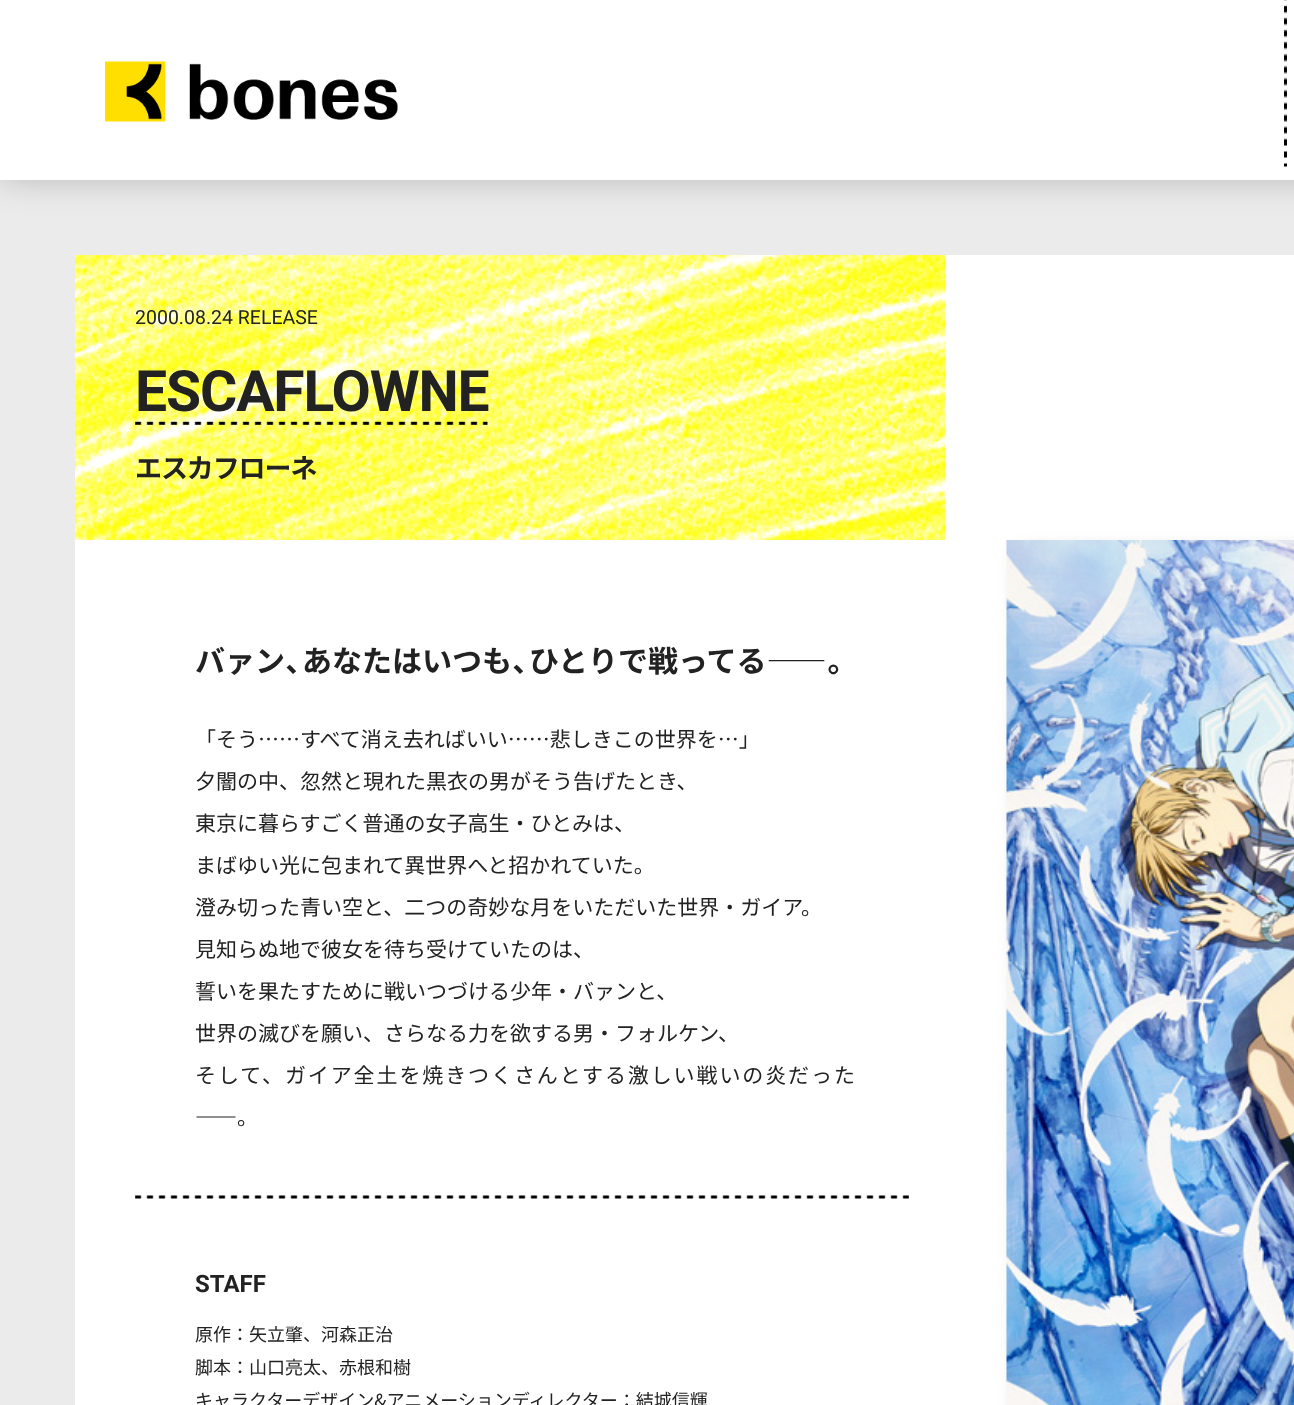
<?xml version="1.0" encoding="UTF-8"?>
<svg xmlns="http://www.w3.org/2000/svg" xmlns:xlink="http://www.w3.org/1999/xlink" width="1294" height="1405">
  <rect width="100%" height="100%" fill="#ebebeb" />
  <rect y="-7" width="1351" height="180" fill="#000000" fill-opacity="0.3" filter="blur(19px)" />
  <rect width="1294" height="180" fill="#ffffff" />
  <image x="105" y="61" width="293" height="61" xlink:href="image1.png" />
  <image x="1284" y="0" width="3" height="167" xlink:href="image2.png" />
  <rect x="75" y="255" width="1219" height="1150" fill="#ffffff" />
  <image x="75" y="255" width="870" height="285" xlink:href="image3.png" />
  <image x="135" y="421" width="353" height="4" xlink:href="image4.png" />
  <image x="135" y="1195" width="774" height="4" xlink:href="image5.png" />
  <rect x="1022" y="555" width="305" height="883" fill="#000000" fill-opacity="0.3" filter="blur(11px)" />
  <image x="1006" y="540" width="288" height="865" xlink:href="image6.png" />
  <text x="135" y="324" style="font-family: Roboto; font-size: 19.5px; fill: #222222">2000.08.24 RELEASE</text>
  <text x="135" y="411" style="font-family: Roboto; font-size: 57px; font-weight: bold; letter-spacing: -1.1px; fill: #222222">ESCAFLOWNE</text>
  <text x="135" y="478" style="font-family: Noto Sans JP; font-size: 27px; font-weight: bold; letter-spacing: -1.1px; fill: #222222">エスカフローネ</text>
  <text x="195" y="672" style="font-family: Noto Sans JP; font-size: 30px; font-weight: bold; fill: #222222">バァン</text>
  <text x="285" y="672" style="font-family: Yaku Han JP; font-size: 30px; font-weight: bold; fill: #222222">、</text>
  <text x="302" y="672" style="font-family: Noto Sans JP; font-size: 30px; font-weight: bold; fill: #222222">あなたはいつも</text>
  <text x="512" y="672" style="font-family: Yaku Han JP; font-size: 30px; font-weight: bold; fill: #222222">、</text>
  <text x="529" y="672" style="font-family: Noto Sans JP; font-size: 30px; font-weight: bold; fill: #222222">ひとりで戦ってる――</text>
  <text x="827" y="672" style="font-family: Yaku Han JP; font-size: 30px; font-weight: bold; fill: #222222">。</text>
  <text x="195" y="747" style="font-family: Noto Sans JP; font-size: 21px; fill: #222222">「そう……すべて消え去ればいい……悲しきこの世界を…」</text>
  <text x="195" y="789" style="font-family: Noto Sans JP; font-size: 21px; fill: #222222">夕闇の中、忽然と現れた黒衣の男がそう告げたとき、</text>
  <text x="195" y="831" style="font-family: Noto Sans JP; font-size: 21px; fill: #222222">東京に暮らすごく普通の女子高生・ひとみは、</text>
  <text x="195" y="873" style="font-family: Noto Sans JP; font-size: 21px; fill: #222222">まばゆい光に包まれて異世界へと招かれていた。</text>
  <text x="195" y="915" style="font-family: Noto Sans JP; font-size: 21px; fill: #222222">澄み切った青い空と、二つの奇妙な月をいただいた世界・ガイア。</text>
  <text x="195" y="957" style="font-family: Noto Sans JP; font-size: 21px; fill: #222222">見知らぬ地で彼女を待ち受けていたのは、</text>
  <text x="195" y="999" style="font-family: Noto Sans JP; font-size: 21px; fill: #222222">誓いを果たすために戦いつづける少年・バァンと、</text>
  <text x="195" y="1041" style="font-family: Noto Sans JP; font-size: 21px; fill: #222222">世界の滅びを願い、さらなる力を欲する男・フォルケン、</text>
  <text x="195" y="1083" style="font-family: Noto Sans JP; font-size: 21px; letter-spacing: 1.9px; fill: #222222">そして、ガイア全土を焼きつくさんとする激しい戦いの炎だった</text>
  <text x="195" y="1125" style="font-family: Noto Sans JP; font-size: 21px; fill: #222222">――。</text>
  <text x="195" y="1292" style="font-family: Roboto; font-size: 24px; font-weight: bold; fill: #222222">STAFF</text>
  <text x="195" y="1341" style="font-family: Noto Sans JP; font-size: 18px; fill: #222222">原作：矢立肇、河森正治</text>
  <text x="195" y="1374" style="font-family: Noto Sans JP; font-size: 18px; fill: #222222">脚本：山口亮太、赤根和樹</text>
  <text x="195" y="1407" style="font-family: Noto Sans JP; font-size: 18px; fill: #222222">キャラクターデザイン&amp;アニメーションディレクター：結城信輝</text>
</svg>
